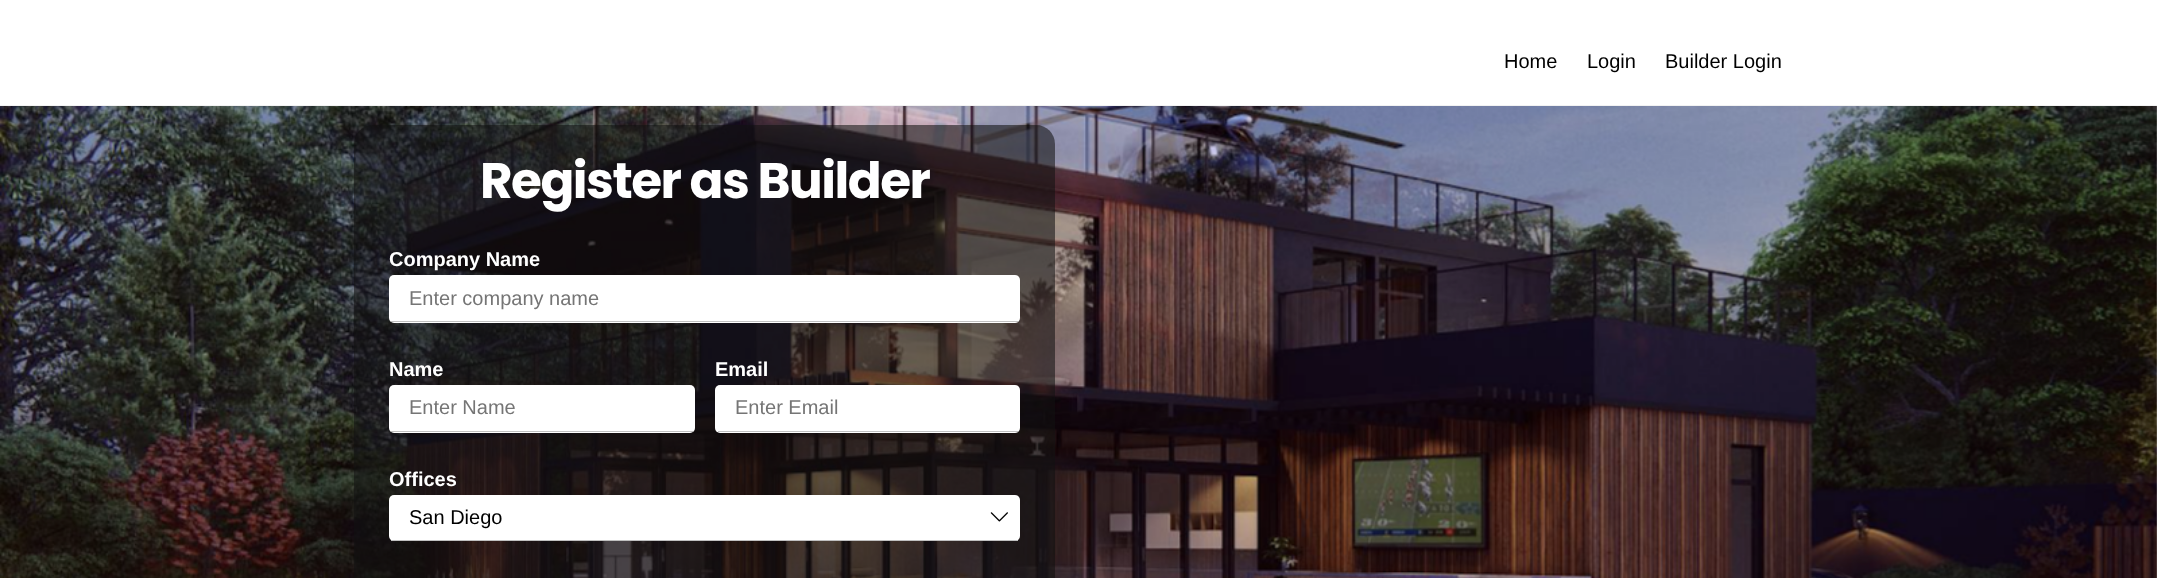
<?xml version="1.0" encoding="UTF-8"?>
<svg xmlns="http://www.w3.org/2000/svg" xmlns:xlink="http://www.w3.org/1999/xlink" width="2157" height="578">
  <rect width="100%" height="100%" fill="#ffffff" />
  <rect y="105" width="2157" height="1" fill="#f2f2f2" />
  <image x="0" y="106" width="2157" height="472" xlink:href="image1.png" />
  <rect x="354" y="125" width="701" height="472" rx="19" fill="#111111" fill-opacity="0.57" />
  <rect x="389" y="275" width="631" height="48" rx="5" fill="#ffffff" />
  <rect x="391" y="321" width="627" height="1" fill="#c0c0c0" />
  <rect x="389" y="385" width="306" height="48" rx="5" fill="#ffffff" />
  <rect x="391" y="431" width="302" height="1" fill="#c0c0c0" />
  <rect x="715" y="385" width="305" height="48" rx="5" fill="#ffffff" />
  <rect x="718" y="431" width="300" height="1" fill="#c0c0c0" />
  <rect x="389" y="495" width="631" height="46" rx="5" fill="#ffffff" />
  <image x="990" y="512" width="18" height="10" xlink:href="image2.png" />
  <rect x="391" y="540" width="627" height="1" fill="#c0c0c0" />
  <text x="1504" y="68" style="font-family: Liberation Sans; font-size: 20px; fill: #000000">Home</text>
  <text x="1587" y="68" style="font-family: Liberation Sans; font-size: 20px; fill: #000000">Login</text>
  <text x="1665" y="68" style="font-family: Liberation Sans; font-size: 20px; fill: #000000">Builder Login</text>
  <text x="480" y="198" style="font-family: Poppins; font-size: 50px; font-weight: bold; letter-spacing: -1.5px; fill: #ffffff">Register as Builder</text>
  <text x="389" y="266" style="font-family: Liberation Sans; font-size: 20px; font-weight: bold; fill: #ffffff">Company Name</text>
  <text x="409" y="305" style="font-family: Liberation Sans; font-size: 20px; fill: #757575">Enter company name</text>
  <text x="389" y="376" style="font-family: Liberation Sans; font-size: 20px; font-weight: bold; fill: #ffffff">Name</text>
  <text x="409" y="414" style="font-family: Liberation Sans; font-size: 20px; fill: #757575">Enter Name</text>
  <text x="715" y="376" style="font-family: Liberation Sans; font-size: 20px; font-weight: bold; fill: #ffffff">Email</text>
  <text x="735" y="414" style="font-family: Liberation Sans; font-size: 20px; fill: #757575">Enter Email</text>
  <text x="389" y="486" style="font-family: Liberation Sans; font-size: 20px; font-weight: bold; fill: #ffffff">Offices</text>
  <text x="409" y="524" style="font-family: Liberation Sans; font-size: 20px; fill: #000000">San Diego</text>
</svg>
